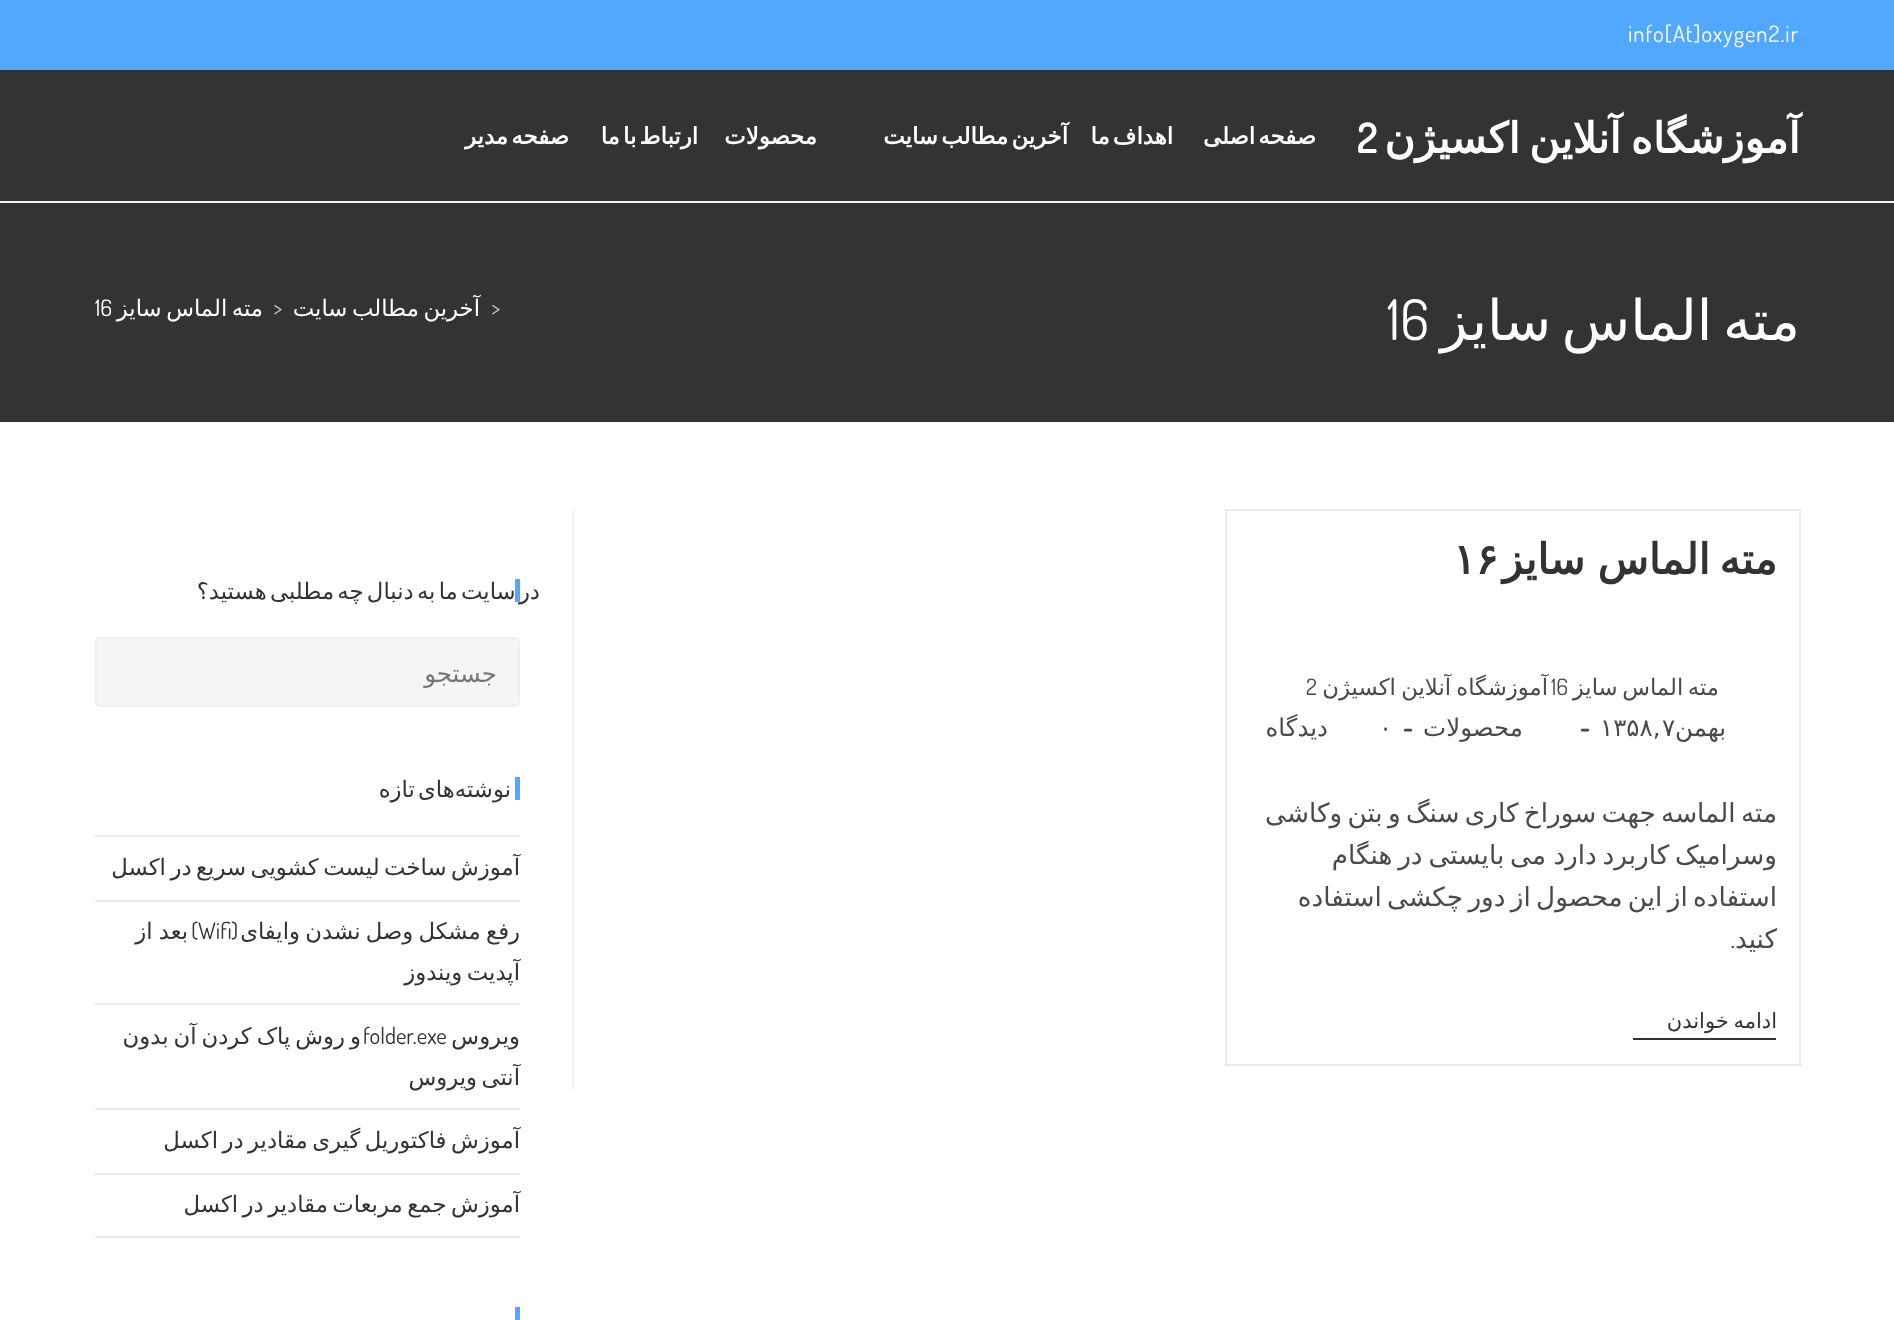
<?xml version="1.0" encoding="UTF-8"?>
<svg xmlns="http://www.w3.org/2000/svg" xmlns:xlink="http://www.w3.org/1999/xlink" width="1894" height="1320">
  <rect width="100%" height="100%" fill="#ffffff" />
  <rect width="1894" height="70" fill="#52a7fe" />
  <rect y="70" width="1894" height="352" fill="#333333" />
  <rect y="201" width="1894" height="2" fill="#f1f1f1" />
  <rect x="572" y="509" width="2" height="580" fill="#f1f1f1" />
  <rect x="1226" y="510" width="574" height="555" fill="none" stroke="#e9e9e9" stroke-width="2" />
  <rect x="1633" y="1038" width="143" height="2" fill="#333333" />
  <rect x="515" y="579" width="5" height="23" fill="#52a7fe" />
  <rect x="96" y="638" width="423" height="68" rx="4" fill="#f5f5f5" stroke="#eeeeee" stroke-width="2" />
  <rect x="515" y="777" width="5" height="23" fill="#52a7fe" />
  <rect x="95" y="835" width="425" height="2" fill="#e9e9e9" />
  <rect x="95" y="900" width="425" height="2" fill="#e9e9e9" />
  <rect x="95" y="1003" width="425" height="2" fill="#e9e9e9" />
  <rect x="95" y="1108" width="425" height="2" fill="#e9e9e9" />
  <rect x="95" y="1173" width="425" height="2" fill="#e9e9e9" />
  <rect x="95" y="1236" width="425" height="2" fill="#e9e9e9" />
  <rect x="515" y="1307" width="5" height="13" fill="#52a7fe" />
  <text x="1628" y="42" style="font-family: Dosis; font-size: 22.75px; letter-spacing: 1px; fill: #ffffff">info[At]oxygen2.ir</text>
  <text x="1800" y="153" style="font-family: DejaVu Sans; font-size: 42px; font-weight: bold; letter-spacing: 1px; direction: rtl; fill: #ffffff">آموزشگاه</text>
  <text x="1621" y="153" style="font-family: DejaVu Sans; font-size: 42px; font-weight: bold; letter-spacing: 1px; direction: rtl; fill: #ffffff">آنلاین</text>
  <text x="1520" y="153" style="font-family: DejaVu Sans; font-size: 42px; font-weight: bold; letter-spacing: 1px; direction: rtl; fill: #ffffff">اکسیژن</text>
  <text x="1357" y="153" style="font-family: Dosis; font-size: 42px; font-weight: 600; letter-spacing: 1px; fill: #ffffff">2</text>
  <text x="1316" y="144" word-spacing="-4" style="font-family: DejaVu Sans; font-size: 22.75px; font-weight: bold; letter-spacing: 1px; direction: rtl; fill: #ffffff">صفحه اصلی</text>
  <text x="1173" y="144" word-spacing="-4" style="font-family: DejaVu Sans; font-size: 22.75px; font-weight: bold; letter-spacing: 1px; direction: rtl; fill: #ffffff">اهداف ما</text>
  <text x="1068" y="144" word-spacing="-4" style="font-family: DejaVu Sans; font-size: 22.75px; font-weight: bold; letter-spacing: 1px; direction: rtl; fill: #ffffff">آخرین مطالب سایت</text>
  <text x="817" y="144" style="font-family: DejaVu Sans; font-size: 22.75px; font-weight: bold; letter-spacing: 1px; direction: rtl; fill: #ffffff">محصولات</text>
  <text x="698" y="144" word-spacing="-4" style="font-family: DejaVu Sans; font-size: 22.75px; font-weight: bold; letter-spacing: 1px; direction: rtl; fill: #ffffff">ارتباط با ما</text>
  <text x="569" y="144" word-spacing="-4" style="font-family: DejaVu Sans; font-size: 22.75px; font-weight: bold; letter-spacing: 1px; direction: rtl; fill: #ffffff">صفحه مدیر</text>
  <text x="1800" y="340" word-spacing="-7" style="font-family: DejaVu Sans; font-size: 56px; direction: rtl; fill: #ffffff">مته الماس سایز</text>
  <text x="1387" y="340" style="font-family: Dosis; font-size: 56px; fill: #ffffff">16</text>
  <text x="491" y="316" style="font-family: Dosis; font-size: 22.75px; fill: #c6c6c6">&gt;</text>
  <text x="480" y="316" word-spacing="-2.75" style="font-family: DejaVu Sans; font-size: 22.75px; direction: rtl; fill: #ffffff">آخرین مطالب سایت</text>
  <text x="273" y="316" style="font-family: Dosis; font-size: 22.75px; fill: #c6c6c6">&gt;</text>
  <text x="263" y="316" word-spacing="-2.75" style="font-family: DejaVu Sans; font-size: 22.75px; direction: rtl; fill: #ffffff">مته الماس سایز</text>
  <text x="95" y="316" style="font-family: Dosis; font-size: 22.75px; fill: #ffffff">16</text>
  <text x="1777" y="574" style="font-family: DejaVu Sans; font-size: 42px; font-weight: bold; letter-spacing: 1px; direction: rtl; fill: #333333">مته</text>
  <text x="1710" y="574" style="font-family: DejaVu Sans; font-size: 42px; font-weight: bold; letter-spacing: 1px; direction: rtl; fill: #333333">الماس</text>
  <text x="1585" y="574" style="font-family: DejaVu Sans; font-size: 42px; font-weight: bold; letter-spacing: 1px; direction: rtl; fill: #333333">سایز</text>
  <text x="1453" y="574" style="font-family: DejaVu Sans; font-size: 42px; font-weight: bold; letter-spacing: 1px; fill: #333333">۱۶</text>
  <text x="1719" y="695" word-spacing="-2.75" style="font-family: DejaVu Sans; font-size: 22.75px; direction: rtl; fill: #4a4a4a">مته الماس سایز</text>
  <text x="1548" y="695" word-spacing="-2" style="font-family: DejaVu Sans; font-size: 22.75px; direction: rtl; fill: #4a4a4a">آموزشگاه آنلاین اکسیژن</text>
  <text x="1551" y="695" style="font-family: Dosis; font-size: 22.75px; fill: #4a4a4a">16</text>
  <text x="1306" y="695" style="font-family: Dosis; font-size: 22.75px; fill: #4a4a4a">2</text>
  <text x="1726" y="736" style="font-family: DejaVu Sans; font-size: 24.5px; direction: rtl; fill: #4a4a4a">بهمن</text>
  <text x="1662" y="736" style="font-family: DejaVu Sans; font-size: 24.5px; fill: #4a4a4a">۷</text>
  <text x="1600" y="736" style="font-family: DejaVu Sans; font-size: 24.5px; fill: #4a4a4a">۱۳۵۸,</text>
  <text x="1580" y="736" style="font-family: Dosis; font-size: 24.5px; font-weight: bold; fill: #4a4a4a">-</text>
  <text x="1523" y="736" style="font-family: DejaVu Sans; font-size: 24.5px; direction: rtl; fill: #4a4a4a">محصولات</text>
  <text x="1403" y="736" style="font-family: Dosis; font-size: 24.5px; font-weight: bold; fill: #4a4a4a">-</text>
  <text x="1379" y="736" style="font-family: DejaVu Sans; font-size: 24.5px; fill: #4a4a4a">۰</text>
  <text x="1328" y="736" style="font-family: DejaVu Sans; font-size: 24.5px; direction: rtl; fill: #4a4a4a">دیدگاه</text>
  <text x="1777" y="822" word-spacing="-3" style="font-family: DejaVu Sans; font-size: 26.25px; direction: rtl; fill: #4a4a4a">مته الماسه جهت سوراخ کاری سنگ و بتن وکاشی</text>
  <text x="1777" y="864" word-spacing="-2.5" style="font-family: DejaVu Sans; font-size: 26.25px; direction: rtl; fill: #4a4a4a">وسرامیک کاربرد دارد</text>
  <text x="1546" y="864" word-spacing="-2.5" style="font-family: DejaVu Sans; font-size: 26.25px; direction: rtl; fill: #4a4a4a">می بایستی در هنگام</text>
  <text x="1777" y="906" word-spacing="-3" style="font-family: DejaVu Sans; font-size: 26.25px; direction: rtl; fill: #4a4a4a">استفاده از این محصول از دور چکشی استفاده</text>
  <text x="1777" y="948" style="font-family: DejaVu Sans; font-size: 26.25px; direction: rtl; fill: #4a4a4a">کنید</text>
  <text x="1735" y="948" style="font-family: Dosis; font-size: 26.25px; direction: rtl; fill: #4a4a4a">.</text>
  <text x="1777" y="1028" word-spacing="-2" style="font-family: DejaVu Sans; font-size: 21px; direction: rtl; fill: #333333">ادامه خواندن</text>
  <text x="540" y="599" word-spacing="-4" style="font-family: DejaVu Sans; font-size: 22.75px; letter-spacing: 1.75px; direction: rtl; fill: #333333">در سایت ما به دنبال چه مطلبی هستید؟</text>
  <text x="497" y="682" style="font-family: DejaVu Sans; font-size: 24.5px; direction: rtl; fill: #757575">جستجو</text>
  <text x="511" y="797" word-spacing="-4" style="font-family: DejaVu Sans; font-size: 22.75px; letter-spacing: 1.75px; direction: rtl; fill: #333333">نوشته‌های تازه</text>
  <text x="520" y="875" word-spacing="-2.75" style="font-family: DejaVu Sans; font-size: 22.75px; direction: rtl; fill: #333333">آموزش ساخت لیست کشویی سریع در اکسل</text>
  <text x="520" y="939" word-spacing="-2" style="font-family: DejaVu Sans; font-size: 22.75px; direction: rtl; fill: #333333">رفع مشکل وصل نشدن وایفای</text>
  <text x="238" y="939" style="font-family: Dosis; font-size: 22.75px; direction: rtl; fill: #333333">(</text>
  <text x="198" y="939" style="font-family: Dosis; font-size: 22.75px; fill: #333333">Wifi</text>
  <text x="198" y="939" style="font-family: Dosis; font-size: 22.75px; direction: rtl; fill: #333333">)</text>
  <text x="188" y="939" word-spacing="-1" style="font-family: DejaVu Sans; font-size: 22.75px; direction: rtl; fill: #333333">بعد از</text>
  <text x="520" y="980" word-spacing="-2.75" style="font-family: DejaVu Sans; font-size: 22.75px; direction: rtl; fill: #333333">آپدیت ویندوز</text>
  <text x="520" y="1044" style="font-family: DejaVu Sans; font-size: 22.75px; direction: rtl; fill: #333333">ویروس</text>
  <text x="361" y="1044" word-spacing="-2.25" style="font-family: DejaVu Sans; font-size: 22.75px; direction: rtl; fill: #333333">و روش پاک کردن آن بدون</text>
  <text x="363" y="1044" style="font-family: Dosis; font-size: 22.75px; fill: #333333">folder.exe</text>
  <text x="520" y="1085" word-spacing="-2.75" style="font-family: DejaVu Sans; font-size: 22.75px; direction: rtl; fill: #333333">آنتی ویروس</text>
  <text x="520" y="1148" word-spacing="-2.75" style="font-family: DejaVu Sans; font-size: 22.75px; direction: rtl; fill: #333333">آموزش فاکتوریل گیری مقادیر در اکسل</text>
  <text x="520" y="1212" word-spacing="-2.75" style="font-family: DejaVu Sans; font-size: 22.75px; direction: rtl; fill: #333333">آموزش جمع مربعات مقادیر در اکسل</text>
</svg>
